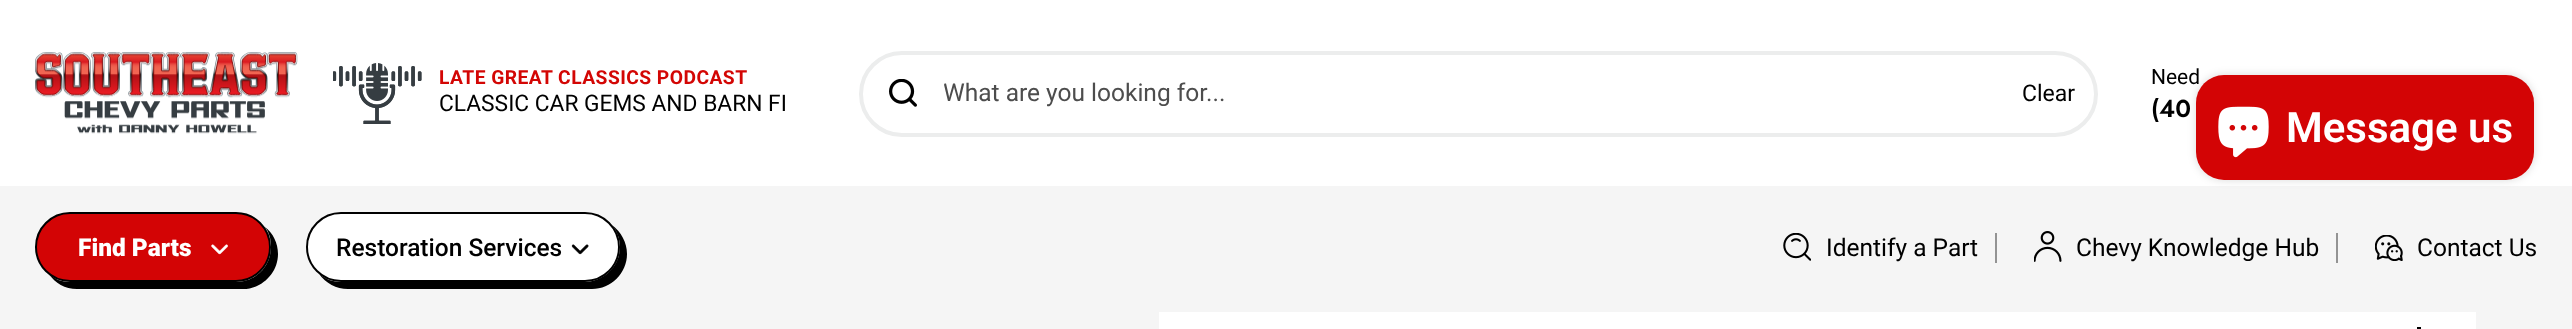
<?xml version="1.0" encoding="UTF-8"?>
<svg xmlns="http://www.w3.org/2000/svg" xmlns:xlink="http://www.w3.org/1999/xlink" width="2572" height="329">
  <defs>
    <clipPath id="clip1"><rect x="943" y="54" width="1052" height="79" rx="39.5" /></clipPath>
  </defs>
  <rect width="100%" height="100%" fill="#f5f5f5" />
  <rect width="2572" height="186" fill="#ffffff" />
  <image x="35" y="52" width="263" height="82" xlink:href="image1.png" />
  <image x="333" y="63" width="89" height="61" xlink:href="image2.png" />
  <rect x="861" y="53" width="1235" height="82" rx="41" fill="none" stroke="#eceded" stroke-width="4" />
  <image x="889" y="79" width="28" height="28" xlink:href="image3.png" />
  <path d="M 49 274 c 6 9 16 15 28 15 h 166 c 19 0 35 -16 35 -35 c 0 -11 -5 -21 -13 -27 c 4 5 6 12 6 20 c 0 19 -15 35 -35 35 h -166 c -8 0 -16 -3 -21 -8 z" fill="#000000" />
  <rect x="36" y="213" width="234" height="68" rx="34" fill="#d30405" stroke="#000000" stroke-width="2" />
  <image x="211" y="244" width="17" height="11" xlink:href="image4.png" />
  <path d="M 319 274 c 7 9 17 15 29 15 h 244 c 19 0 35 -16 35 -35 c 0 -12 -6 -22 -15 -29 c 5 6 8 14 8 22 c 0 19 -16 35 -36 35 h -243 c -8 0 -16 -3 -22 -8 z" fill="#000000" />
  <rect x="307" y="213" width="312" height="68" rx="34" fill="#ffffff" stroke="#000000" stroke-width="2" />
  <image x="571" y="244" width="18" height="11" xlink:href="image5.png" />
  <image x="1783" y="233" width="28" height="28" xlink:href="image6.png" />
  <rect x="1995" y="233" width="2" height="30" fill="#939393" />
  <image x="2034" y="231" width="28" height="31" xlink:href="image7.png" />
  <rect x="2336" y="233" width="2" height="30" fill="#939393" />
  <image x="2375" y="235" width="28" height="26" xlink:href="image8.png" />
  <rect x="1159" y="312" width="1317" height="17" fill="#ffffff" />
  <rect x="2417" y="327" width="4" height="2" fill="#000000" />
  <rect x="2196" y="75" width="338" height="105" rx="28" fill="#000000" fill-opacity="0.15" filter="blur(4.5px)" />
  <text x="439" y="84" style="font-family: Roboto; font-size: 19.25px; font-weight: bold; letter-spacing: 0.45px; fill: #d30604">LATE GREAT CLASSICS PODCAST</text>
  <text x="439" y="111" style="font-family: Roboto; font-size: 22.75px; fill: #000000">CLASSIC CAR GEMS AND BARN FI</text>
  <g clip-path="url(#clip1)">
    <text x="943" y="101" style="font-family: Roboto; font-size: 24.5px; fill: #4d4d4d">What are you looking for...</text>
  </g>
  <text x="2022" y="101" style="font-family: Roboto; font-size: 23px; fill: #000000">Clear</text>
  <text x="2151" y="84" style="font-family: Roboto; font-size: 21px; fill: #000000">Need</text>
  <text x="2151" y="117" style="font-family: Jost; font-size: 24.5px; font-weight: 600; fill: #000000">(40</text>
  <text x="78" y="256" style="font-family: Roboto; font-size: 24.5px; font-weight: 900; fill: #ffffff">Find Parts</text>
  <text x="336" y="256" style="font-family: Roboto; font-size: 24.5px; font-weight: 500; fill: #000000">Restoration Services</text>
  <text x="1826" y="256" style="font-family: Roboto; font-size: 24.5px; fill: #000000">Identify a Part</text>
  <text x="2076" y="256" style="font-family: Roboto; font-size: 24.5px; fill: #000000">Chevy Knowledge Hub</text>
  <text x="2417" y="256" style="font-family: Roboto; font-size: 24.5px; fill: #000000">Contact Us</text>
  <rect x="2196" y="75" width="338" height="105" rx="28" fill="#d30405" />
  <image x="2218" y="106" width="51" height="52" xlink:href="image9.png" />
  <text x="2286" y="142" style="font-family: Roboto; font-size: 42px; font-weight: 600; fill: #ffffff">Message us</text>
</svg>
